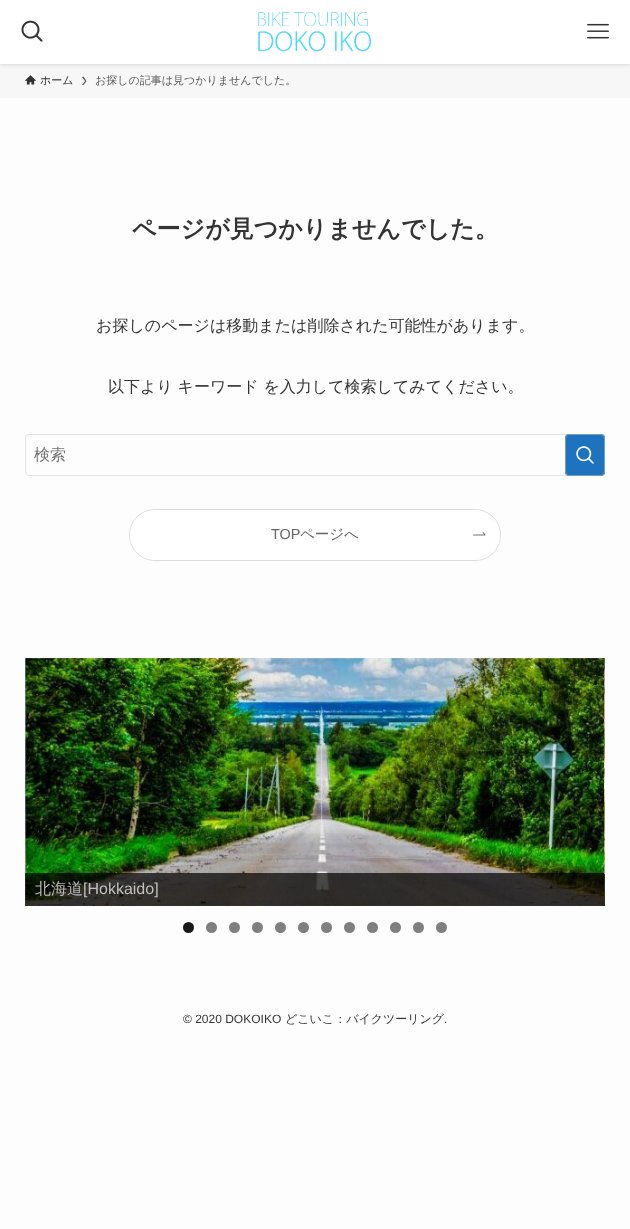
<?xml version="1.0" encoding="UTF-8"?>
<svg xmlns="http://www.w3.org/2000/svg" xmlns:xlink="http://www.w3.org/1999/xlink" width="630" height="1229">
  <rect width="100%" height="100%" fill="#fdfdfd" />
  <rect y="64" width="630" height="34" fill="#f7f7f7" />
  <rect y="1" width="630" height="64" fill="#000000" fill-opacity="0.12" filter="blur(2px)" />
  <rect width="630" height="64" fill="#ffffff" />
  <image x="21" y="20" width="22" height="22" xlink:href="image1.png" />
  <image x="258" y="11" width="113" height="41" xlink:href="image2.png" />
  <image x="587" y="23" width="22" height="16" xlink:href="image3.png" />
  <image x="25" y="75" width="11" height="10" xlink:href="image4.png" />
  <path d="M 83.5 76.5 l -1.5 0.5 l 3 4 l -3 4 h 1.5 l 3 -4 z" fill="#5a5a5a" />
  <rect x="25.5" y="434.5" width="579" height="41" rx="3.5" fill="none" stroke="#e3e3e3" />
  <rect x="565" y="434" width="40" height="42" rx="4" fill="#1e73be" />
  <rect x="565.5" y="434.5" width="39" height="41" rx="3.5" fill="none" stroke="#c7c7c7" stroke-opacity="0.5" />
  <image x="576" y="446" width="18" height="18" xlink:href="image5.png" />
  <rect x="129.5" y="509.5" width="371" height="51" rx="25.5" fill="none" stroke="#dcdcdc" />
  <rect x="130" y="510" width="370" height="50" rx="25" fill="#ffffff" />
  <image x="473" y="532" width="13" height="4" xlink:href="image6.png" />
  <image x="25" y="658" width="1" height="248" xlink:href="image7.png" />
  <image x="25" y="658" width="580" height="248" xlink:href="image8.png" />
  <rect x="25" y="873" width="579" height="33" fill="#000000" fill-opacity="0.7" />
  <image x="604" y="658" width="1" height="248" xlink:href="image9.png" />
  <rect x="604" y="874" width="1" height="32" fill="#000000" fill-opacity="0.7" />
  <circle cx="188.5" cy="927.5" r="5.5" fill="#191919" />
  <circle cx="211.5" cy="927.5" r="5.5" fill="#7f7f7f" />
  <circle cx="234.5" cy="927.5" r="5.5" fill="#7f7f7f" />
  <circle cx="257.5" cy="927.5" r="5.5" fill="#7f7f7f" />
  <circle cx="280.5" cy="927.5" r="5.5" fill="#7f7f7f" />
  <circle cx="303.5" cy="927.5" r="5.5" fill="#7f7f7f" />
  <circle cx="326.5" cy="927.5" r="5.5" fill="#7f7f7f" />
  <circle cx="349.5" cy="927.5" r="5.5" fill="#7f7f7f" />
  <circle cx="372.5" cy="927.5" r="5.5" fill="#7f7f7f" />
  <circle cx="395.5" cy="927.5" r="5.5" fill="#7f7f7f" />
  <circle cx="418.5" cy="927.5" r="5.5" fill="#7f7f7f" />
  <circle cx="441.5" cy="927.5" r="5.5" fill="#7f7f7f" />
  <text x="40" y="84" style="font-family: WenQuanYi Zen Hei; font-size: 11px; font-weight: 500; fill: #333333">ホーム</text>
  <text x="95" y="84" style="font-family: WenQuanYi Zen Hei; font-size: 11px; font-weight: 500; fill: #5a5a5a">お探しの記事は見つかりませんでした。</text>
  <text x="132" y="237" style="font-family: WenQuanYi Zen Hei; font-size: 24px; font-weight: bold; fill: #333333">ページが見つかりませんでした。</text>
  <text x="96" y="331" style="font-family: WenQuanYi Zen Hei; font-size: 16px; font-weight: 500; fill: #333333">お探しのページは移動または削除された可能性があります。</text>
  <text x="108" y="392" style="font-family: WenQuanYi Zen Hei; font-size: 16px; font-weight: 500; fill: #333333">以下より キーワード を入力して検索してみてください。</text>
  <text x="34" y="460" style="font-family: WenQuanYi Zen Hei; font-size: 16px; font-weight: 500; fill: #757575">検索</text>
  <text x="271" y="539" style="font-family: Liberation Sans; font-size: 14.5px; fill: #666666">TOP</text>
  <text x="300" y="539" style="font-family: WenQuanYi Zen Hei; font-size: 14.5px; font-weight: 500; fill: #666666">ページへ</text>
  <text x="35" y="894" style="font-family: WenQuanYi Zen Hei; font-size: 16px; font-weight: 500; fill: #b9bab7">北海道</text>
  <text x="83" y="894" style="font-family: Liberation Sans; font-size: 16px; fill: #c1c0bf">[Hokkaido]</text>
  <text x="183" y="1023" style="font-family: Liberation Sans; font-size: 12px; fill: #333333">© 2020 DOKOIKO</text>
  <text x="285" y="1023" style="font-family: WenQuanYi Zen Hei; font-size: 12px; font-weight: 500; fill: #333333">どこいこ：バイクツーリング</text>
  <text x="444" y="1023" style="font-family: Liberation Sans; font-size: 12px; fill: #333333">.</text>
</svg>
